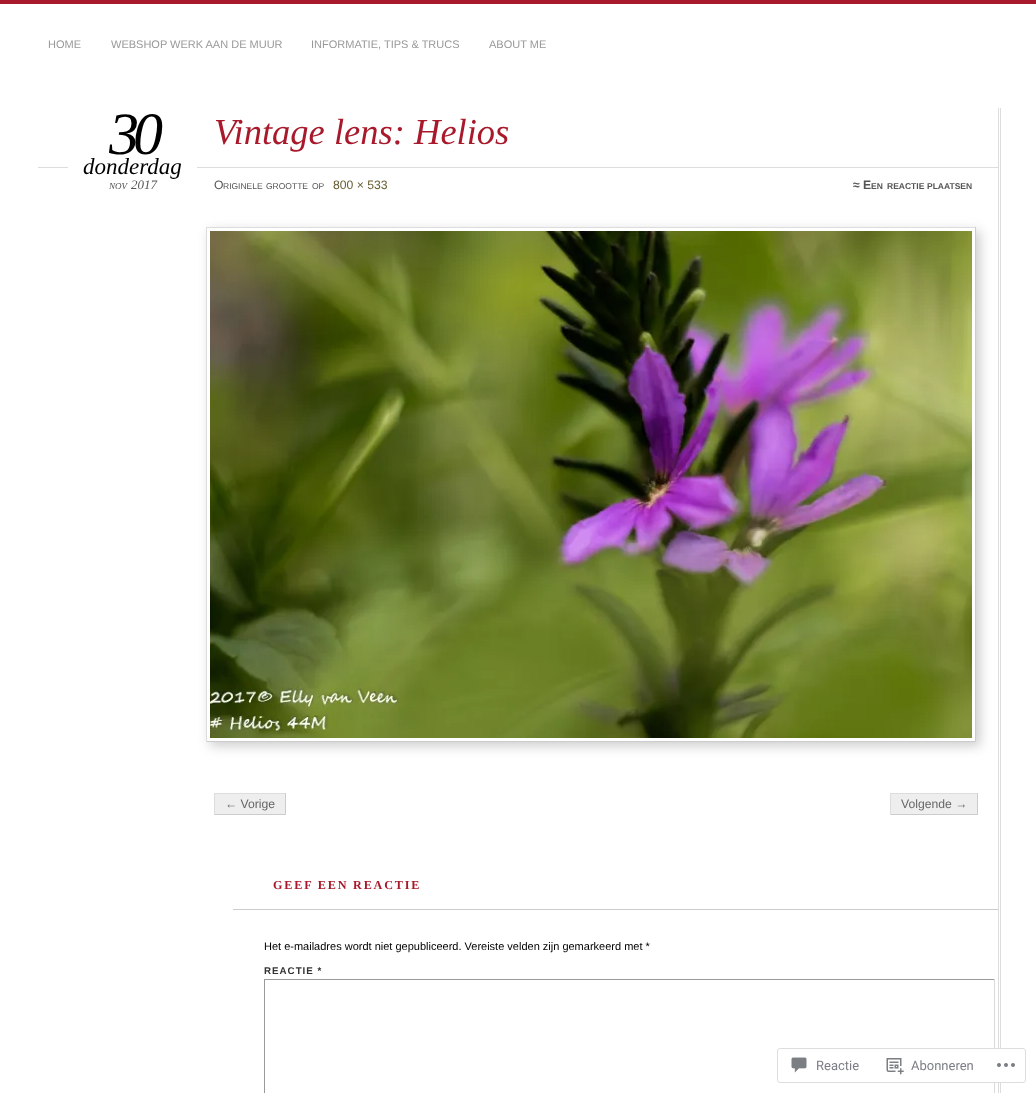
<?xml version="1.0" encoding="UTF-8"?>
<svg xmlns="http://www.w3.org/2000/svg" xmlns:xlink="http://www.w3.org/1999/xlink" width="1036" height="1093">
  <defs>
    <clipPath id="clip1"><path d="M 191 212 h 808 v 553 h -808 z m 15 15 h 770 v 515 h -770 z" clip-rule="evenodd" /></clipPath>
  </defs>
  <rect width="100%" height="100%" fill="#ffffff" />
  <rect width="1036" height="4" fill="#a81a2b" />
  <rect x="998" y="108" width="1" height="985" fill="#dddddd" />
  <rect x="1000" y="108" width="1" height="985" fill="#dddddd" />
  <rect x="38" y="167" width="960" height="1" fill="#dddddd" />
  <rect x="68" y="167" width="129" height="1" fill="#ffffff" />
  <g clip-path="url(#clip1)">
    <rect x="210" y="231" width="770" height="515" fill="#cccccc" filter="blur(6px)" />
  </g>
  <rect x="206" y="227" width="770" height="1" fill="#dddddd" />
  <rect x="975" y="227" width="1" height="515" fill="#cccccc" />
  <rect x="206" y="741" width="770" height="1" fill="#cccccc" />
  <rect x="206" y="227" width="1" height="515" fill="#dddddd" />
  <image x="210" y="231" width="762" height="507" xlink:href="image1.png" />
  <rect x="215" y="794" width="70" height="20" fill="#eeeeee" />
  <rect x="214" y="793" width="72" height="1" fill="#dddddd" />
  <rect x="285" y="793" width="1" height="22" fill="#cccccc" />
  <rect x="214" y="814" width="72" height="1" fill="#cccccc" />
  <rect x="214" y="793" width="1" height="22" fill="#dddddd" />
  <rect x="891" y="794" width="86" height="20" fill="#eeeeee" />
  <rect x="890" y="793" width="88" height="1" fill="#dddddd" />
  <rect x="977" y="793" width="1" height="22" fill="#cccccc" />
  <rect x="890" y="814" width="88" height="1" fill="#cccccc" />
  <rect x="890" y="793" width="1" height="22" fill="#dddddd" />
  <rect x="233" y="909" width="765" height="1" fill="#cccccc" />
  <rect x="264" y="979" width="731" height="1" fill="#999999" />
  <rect x="994" y="979" width="1" height="114" fill="#dadada" />
  <rect x="264" y="979" width="1" height="114" fill="#999999" />
  <rect x="777.5" y="1048.5" width="248" height="34" rx="2.5" fill="#ffffff" fill-opacity="0.98" stroke="#dddddf" />
  <image x="791" y="1057" width="16" height="16" xlink:href="image2.png" />
  <image x="886" y="1058" width="18" height="17" xlink:href="image3.png" />
  <image x="997" y="1063" width="18" height="4" xlink:href="image4.png" />
  <text x="48" y="48" style="font-family: Liberation Sans; font-size: 11px; fill: #999999">HOME</text>
  <text x="111" y="48" style="font-family: Liberation Sans; font-size: 11px; fill: #999999">WEBSHOP WERK AAN DE MUUR</text>
  <text x="311" y="48" style="font-family: Liberation Sans; font-size: 11px; fill: #999999">INFORMATIE, TIPS &amp; TRUCS</text>
  <text x="489" y="48" style="font-family: Liberation Sans; font-size: 11px; fill: #999999">ABOUT ME</text>
  <text x="109" y="154" style="font-family: Liberation Serif; font-size: 60px; font-style: italic; letter-spacing: -6px; fill: #000000">30</text>
  <text x="83" y="174" style="font-family: Liberation Serif; font-size: 23px; font-style: italic; fill: #000000">donderdag</text>
  <text x="109" y="189" style="font-family: Liberation Serif; font-size: 9px; font-style: italic; fill: #555555">NOV</text>
  <text x="131" y="189" style="font-family: Liberation Serif; font-size: 13px; font-style: italic; fill: #555555">2017</text>
  <text x="214" y="144" style="font-family: Liberation Serif; font-size: 36.5px; font-style: italic; fill: #a81a2b">Vintage lens: Helios</text>
  <text x="214" y="189" style="font-family: Liberation Sans; font-size: 12.2px; fill: #555555">O</text>
  <text x="223" y="189" style="font-family: Liberation Sans; font-size: 8.5px; fill: #555555">RIGINELE</text>
  <text x="266" y="189" style="font-family: Liberation Sans; font-size: 8.5px; fill: #555555">GROOTTE</text>
  <text x="312" y="189" style="font-family: Liberation Sans; font-size: 8.5px; fill: #555555">OP</text>
  <text x="333" y="189" style="font-family: Liberation Sans; font-size: 12.2px; fill: #675f34">800 × 533</text>
  <text x="853" y="189" style="font-family: Liberation Sans; font-size: 12.2px; font-weight: bold; fill: #555555">≈ E</text>
  <text x="871" y="189" style="font-family: Liberation Sans; font-size: 8.5px; font-weight: bold; fill: #555555">EN</text>
  <text x="887" y="189" style="font-family: Liberation Sans; font-size: 8.5px; font-weight: bold; fill: #555555">REACTIE</text>
  <text x="927" y="189" style="font-family: Liberation Sans; font-size: 8.5px; font-weight: bold; fill: #555555">PLAATSEN</text>
  <text x="225" y="808" style="font-family: Liberation Sans; font-size: 12.2px; fill: #666666">← Vorige</text>
  <text x="901" y="808" style="font-family: Liberation Sans; font-size: 12.2px; fill: #666666">Volgende →</text>
  <text x="273" y="889" style="font-family: Liberation Serif; font-size: 12.2px; font-weight: bold; letter-spacing: 1.8px; fill: #a81a2b">GEEF EEN REACTIE</text>
  <text x="264" y="950" style="font-family: Liberation Sans; font-size: 11px; fill: #000000">Het e-mailadres wordt niet gepubliceerd. Vereiste velden zijn gemarkeerd met *</text>
  <text x="264" y="974" style="font-family: Liberation Sans; font-size: 9.75px; font-weight: bold; letter-spacing: 1px; fill: #333333">REACTIE *</text>
  <text x="816" y="1070" style="font-family: Roboto; font-size: 13px; fill: #7b7f85">Reactie</text>
  <text x="911" y="1070" style="font-family: Roboto; font-size: 13px; fill: #7b7f85">Abonneren</text>
</svg>
